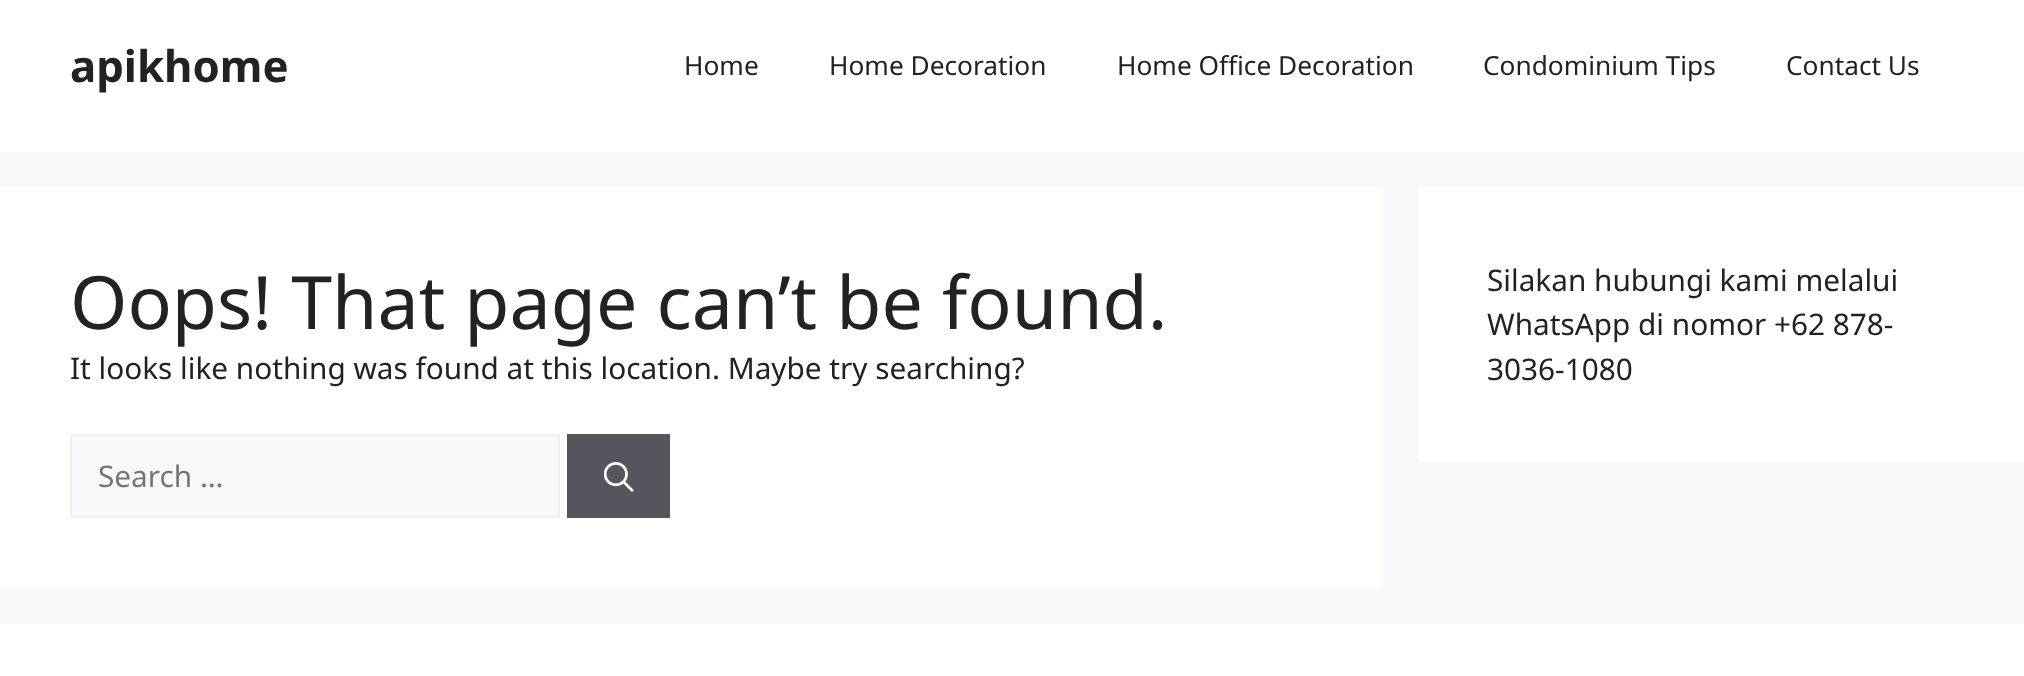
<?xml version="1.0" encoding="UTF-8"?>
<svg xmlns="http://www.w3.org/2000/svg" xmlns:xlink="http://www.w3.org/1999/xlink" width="2024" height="676">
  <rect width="100%" height="100%" fill="#f7f8f9" />
  <rect width="2024" height="152" fill="#ffffff" />
  <rect y="187" width="1383" height="401" fill="#ffffff" />
  <rect x="71" y="435" width="488" height="82" fill="#f7f8f9" stroke="#f0f0f0" stroke-width="2" />
  <rect x="567" y="434" width="103" height="84" fill="#55555e" />
  <image x="604" y="462" width="30" height="30" xlink:href="image1.png" />
  <rect x="1418" y="187" width="606" height="275" fill="#ffffff" />
  <rect y="623" width="2024" height="53" fill="#ffffff" />
  <text x="70" y="82" style="font-family: Noto Sans; font-size: 43.75px; font-weight: bold; fill: #222222">apikhome</text>
  <text x="684" y="75" style="font-family: Noto Sans; font-size: 26.25px; fill: #222222">Home</text>
  <text x="829" y="75" style="font-family: Noto Sans; font-size: 26.25px; fill: #222222">Home Decoration</text>
  <text x="1117" y="75" style="font-family: Noto Sans; font-size: 26.25px; fill: #222222">Home Office Decoration</text>
  <text x="1483" y="75" style="font-family: Noto Sans; font-size: 26.25px; fill: #222222">Condominium Tips</text>
  <text x="1786" y="75" style="font-family: Noto Sans; font-size: 26.25px; fill: #222222">Contact Us</text>
  <text x="70" y="329" style="font-family: Noto Sans; font-size: 73.5px; fill: #222222">Oops! That page can’t be found.</text>
  <text x="70" y="379" style="font-family: Noto Sans; font-size: 29.75px; fill: #222222">It looks like nothing was found at this location. Maybe try searching?</text>
  <text x="98" y="487" style="font-family: Noto Sans; font-size: 29.75px; fill: #757575">Search …</text>
  <text x="1487" y="291" style="font-family: Noto Sans; font-size: 29.75px; fill: #222222">Silakan hubungi kami melalui</text>
  <text x="1487" y="335" style="font-family: Noto Sans; font-size: 29.75px; fill: #222222">WhatsApp di nomor +62 878-</text>
  <text x="1487" y="380" style="font-family: Noto Sans; font-size: 29.75px; fill: #222222">3036-1080</text>
</svg>
